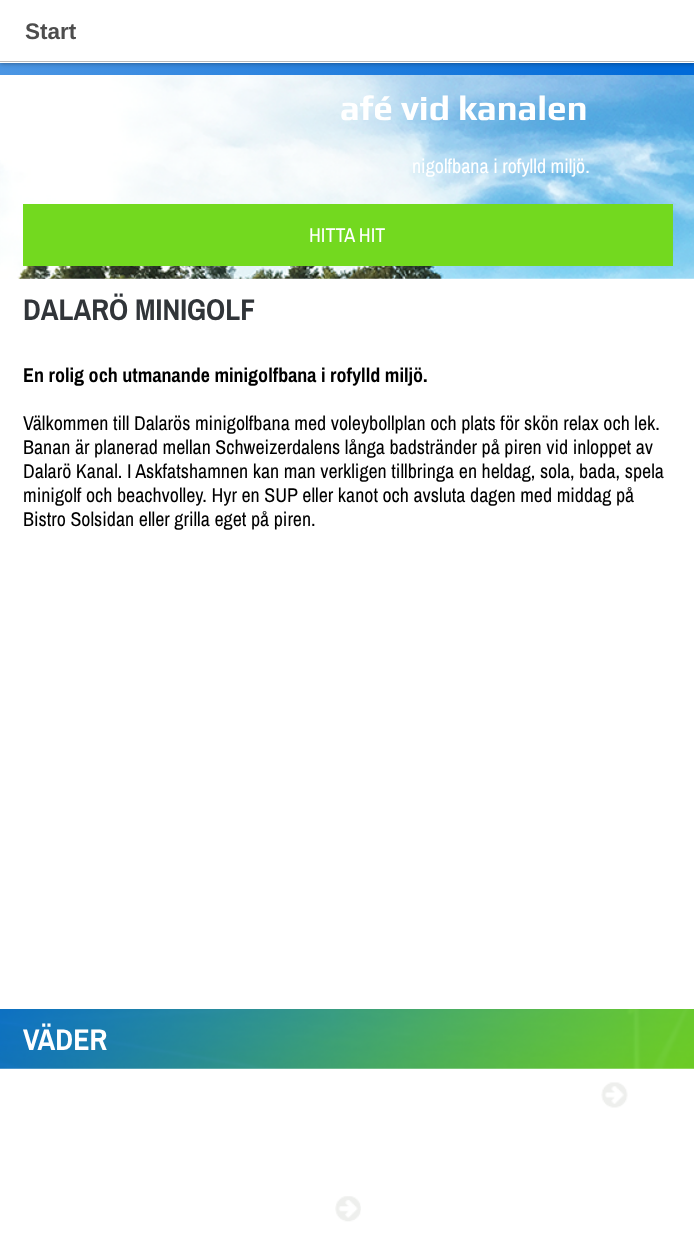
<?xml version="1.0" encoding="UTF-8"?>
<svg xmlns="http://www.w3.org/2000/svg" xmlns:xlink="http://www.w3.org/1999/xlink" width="694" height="1234">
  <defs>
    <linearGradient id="g1" gradientUnits="userSpaceOnUse" x1="0" y1="69" x2="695" y2="69"><stop offset="0" stop-color="#4c96e3" /><stop offset="0.94" stop-color="#006ad8" /></linearGradient>
  </defs>
  <rect width="100%" height="100%" fill="#ffffff" />
  <rect y="63" width="694" height="12" fill="url(#g1)" />
  <rect y="1" width="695" height="63" fill="#000000" fill-opacity="0.3" filter="blur(2px)" />
  <rect width="694" height="63" fill="#ffffff" />
  <rect y="61" width="694" height="1" fill="#bbbbbb" />
  <image x="0" y="75" width="694" height="204" xlink:href="image1.png" />
  <rect x="23" y="204" width="650" height="62" fill="#73d91f" />
  <image x="0" y="1009" width="694" height="60" xlink:href="image2.png" />
  <image x="601" y="1082" width="27" height="26" xlink:href="image3.png" />
  <image x="335" y="1196" width="26" height="26" xlink:href="image4.png" />
  <text x="25" y="39" style="font-family: Liberation Sans; font-size: 22.5px; font-weight: bold; fill: #4d4d4d">Start</text>
  <text x="340" y="120" style="font-family: Play; font-size: 35px; font-weight: bold; fill: #ffffff">afé vid kanalen</text>
  <text x="412" y="173" style="font-family: Archivo Narrow; font-size: 20px; fill: #ffffff">nigolfbana i rofylld miljö.</text>
  <text x="309" y="242" style="font-family: Archivo Narrow; font-size: 20px; fill: #ffffff">HITTA HIT</text>
  <text x="23" y="320" style="font-family: Archivo Narrow; font-size: 30px; font-weight: bold; fill: #313539">DALARÖ MINIGOLF</text>
  <text x="23" y="382" style="font-family: Archivo Narrow; font-size: 20px; font-weight: bold; fill: #000000">En rolig och utmanande minigolfbana i rofylld miljö.</text>
  <text x="23" y="430" style="font-family: Archivo Narrow; font-size: 20px; fill: #000000">Välkommen till Dalarös minigolfbana med voleybollplan och plats för skön relax och lek.</text>
  <text x="23" y="454" style="font-family: Archivo Narrow; font-size: 20px; fill: #000000">Banan är planerad mellan Schweizerdalens långa badstränder på piren vid inloppet av</text>
  <text x="23" y="478" style="font-family: Archivo Narrow; font-size: 20px; fill: #000000">Dalarö Kanal. I Askfatshamnen kan man verkligen tillbringa en heldag, sola, bada, spela</text>
  <text x="23" y="502" style="font-family: Archivo Narrow; font-size: 20px; fill: #000000">minigolf och beachvolley. Hyr en SUP eller kanot och avsluta dagen med middag på</text>
  <text x="23" y="526" style="font-family: Archivo Narrow; font-size: 20px; fill: #000000">Bistro Solsidan eller grilla eget på piren.</text>
  <text x="23" y="1050" style="font-family: Archivo Narrow; font-size: 30px; font-weight: bold; fill: #ffffff">VÄDER</text>
</svg>
